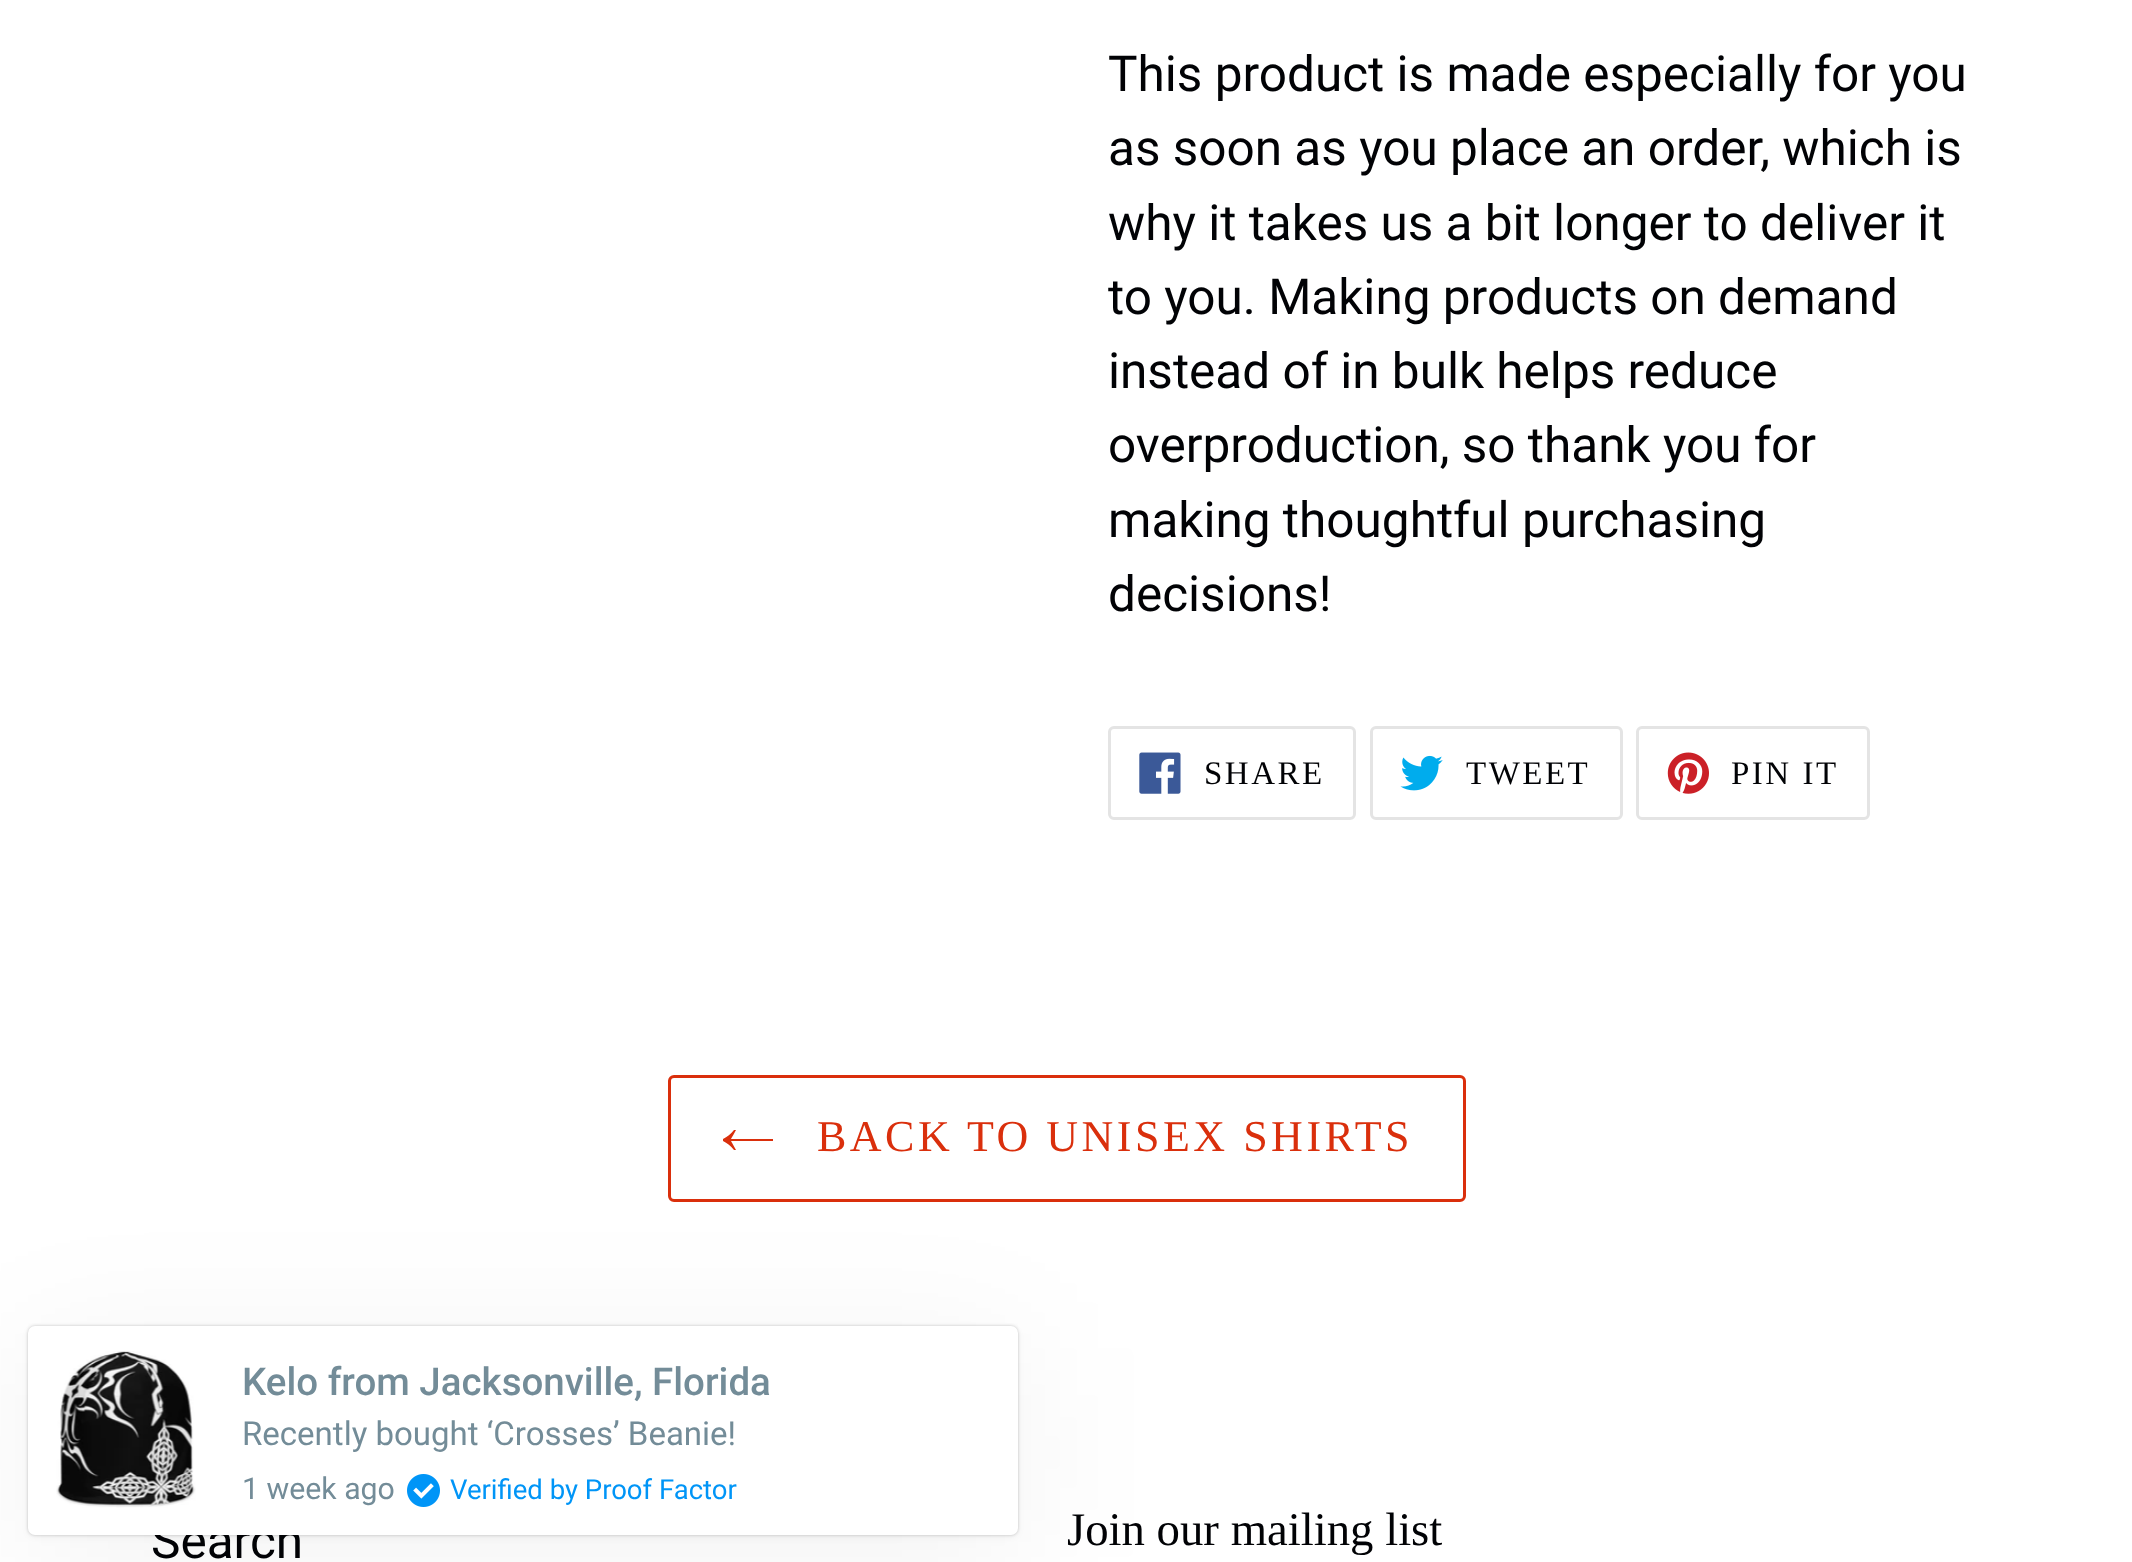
<?xml version="1.0" encoding="UTF-8"?>
<svg xmlns="http://www.w3.org/2000/svg" xmlns:xlink="http://www.w3.org/1999/xlink" width="2132" height="1562">
  <rect width="100%" height="100%" fill="#ffffff" />
  <rect x="1109.5" y="727.5" width="245" height="91" rx="4.5" fill="none" stroke="#e4e4e4" stroke-width="3" />
  <image x="1139" y="752" width="42" height="42" xlink:href="image1.png" />
  <rect x="1371.5" y="727.5" width="250" height="91" rx="4.5" fill="none" stroke="#e4e4e4" stroke-width="3" />
  <image x="1400" y="755" width="43" height="36" xlink:href="image2.png" />
  <rect x="1637.5" y="727.5" width="231" height="91" rx="4.5" fill="none" stroke="#e4e4e4" stroke-width="3" />
  <image x="1667" y="752" width="42" height="42" xlink:href="image3.png" />
  <rect x="669.5" y="1076.5" width="795" height="124" rx="4.5" fill="none" stroke="#da2f0c" stroke-width="3" />
  <path d="M 734 1150 c -3 -4 -7 -7 -11 -9 v -2 c 4 -2 8 -5 11 -9 h 2 c -2 4 -4 7 -5 9 h 42 v 2 h -42 l 5 9 z" fill="#da2f0c" fill-rule="evenodd" />
  <rect x="28" y="1348" width="990" height="209" rx="7" fill="#000000" fill-opacity="0.05" filter="blur(69px)" />
  <rect x="28" y="1328" width="990" height="209" rx="7" fill="#000000" fill-opacity="0.05" filter="blur(3px)" />
  <rect x="28" y="1326" width="990" height="209" rx="7" fill="#000000" fill-opacity="0.2" filter="blur(1.5px)" />
  <text x="1108" y="91" style="font-family: Roboto; font-size: 49.5px; fill: #010205">This product is made especially for you</text>
  <text x="1108" y="165" style="font-family: Roboto; font-size: 49.5px; fill: #010205">as soon as you place an order, which is</text>
  <text x="1108" y="240" style="font-family: Roboto; font-size: 49.5px; fill: #010205">why it takes us a bit longer to deliver it</text>
  <text x="1108" y="314" style="font-family: Roboto; font-size: 49.5px; fill: #010205">to you. Making products on demand</text>
  <text x="1108" y="388" style="font-family: Roboto; font-size: 49.5px; fill: #010205">instead of in bulk helps reduce</text>
  <text x="1108" y="462" style="font-family: Roboto; font-size: 49.5px; fill: #010205">overproduction, so thank you for</text>
  <text x="1108" y="537" style="font-family: Roboto; font-size: 49.5px; fill: #010205">making thoughtful purchasing</text>
  <text x="1108" y="611" style="font-family: Roboto; font-size: 49.5px; fill: #010205">decisions!</text>
  <text x="1204" y="784" style="font-family: Liberation Serif; font-size: 33px; letter-spacing: 2.5px; fill: #010205">SHARE</text>
  <text x="1466" y="784" style="font-family: Liberation Serif; font-size: 33px; letter-spacing: 2.5px; fill: #010205">TWEET</text>
  <text x="1731" y="784" style="font-family: Liberation Serif; font-size: 33px; letter-spacing: 2.5px; fill: #010205">PIN IT</text>
  <text x="817" y="1151" style="font-family: Liberation Serif; font-size: 44px; letter-spacing: 3.5px; fill: #da2f0c">BACK TO UNISEX SHIRTS</text>
  <text x="151" y="1558" style="font-family: Roboto; font-size: 49.5px; fill: #010205">Search</text>
  <text x="1067" y="1545" style="font-family: Liberation Serif; font-size: 46.75px; fill: #010205">Join our mailing list</text>
  <rect x="28" y="1326" width="990" height="209" rx="7" fill="#ffffff" />
  <image x="56" y="1351" width="140" height="157" xlink:href="image4.png" />
  <text x="242" y="1395" style="font-family: Roboto; font-size: 38.5px; font-weight: 500; fill: #738c98">Kelo from Jacksonville, Florida</text>
  <text x="242" y="1445" style="font-family: Roboto; font-size: 33px; fill: #738c98">Recently bought ‘Crosses’ Beanie!</text>
  <text x="242" y="1499" style="font-family: Roboto; font-size: 30.25px; fill: #738c98">1 week ago</text>
  <image x="407" y="1474" width="33" height="33" xlink:href="image5.png" />
  <text x="450" y="1499" style="font-family: Roboto; font-size: 27.5px; fill: #0095f7">Verified by Proof Factor</text>
</svg>
